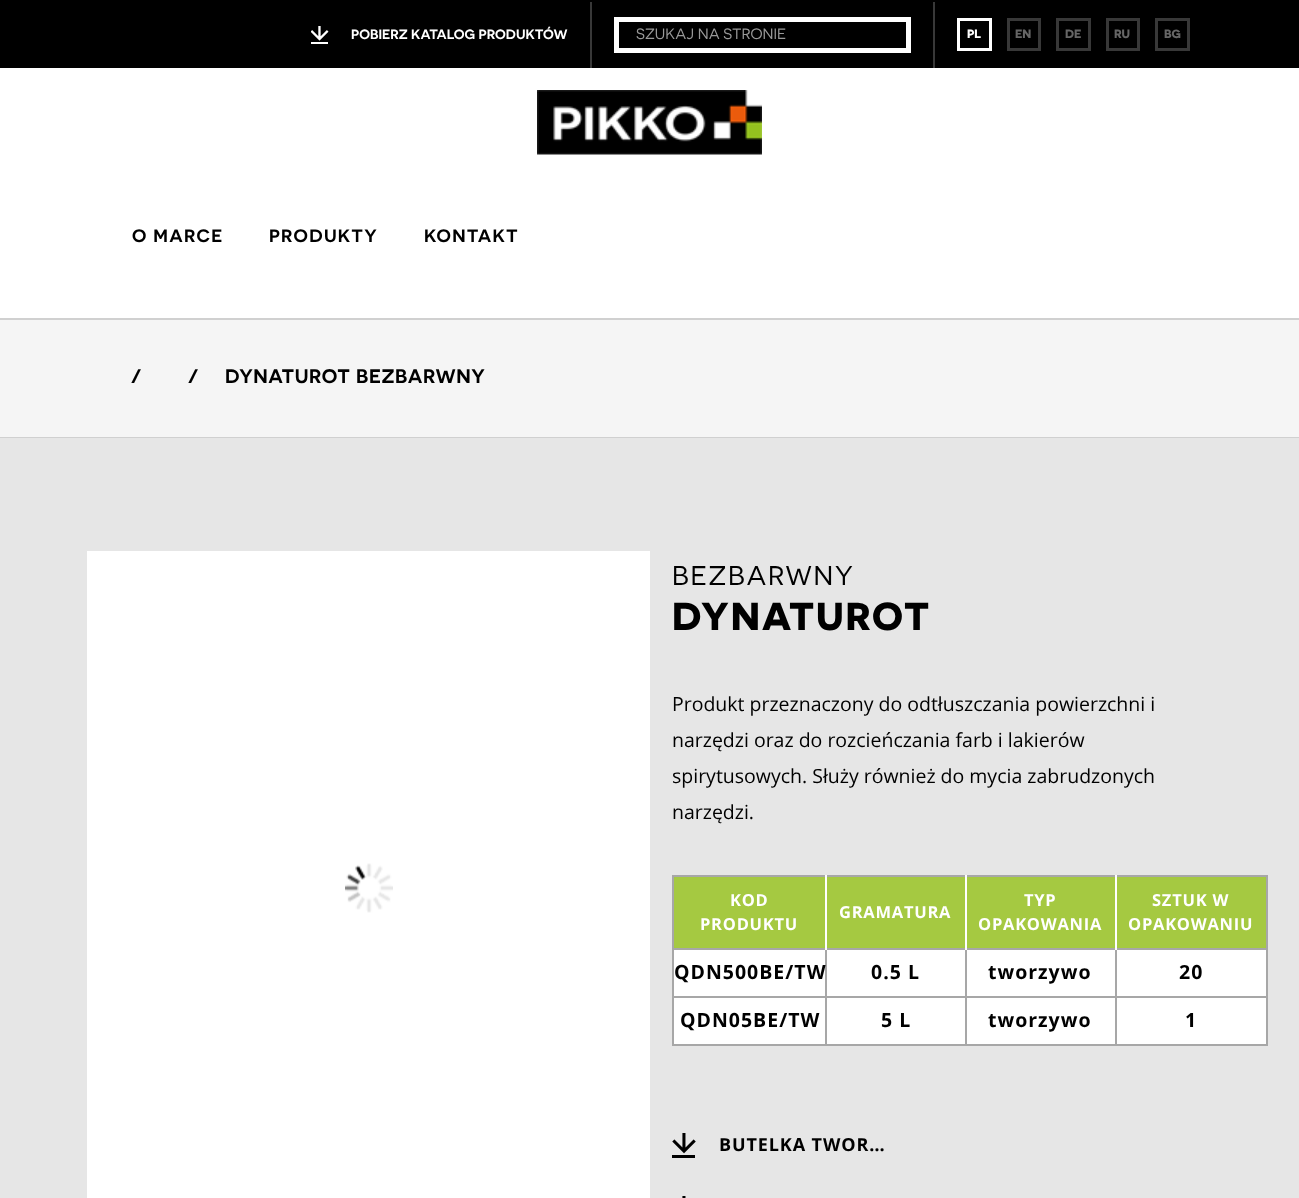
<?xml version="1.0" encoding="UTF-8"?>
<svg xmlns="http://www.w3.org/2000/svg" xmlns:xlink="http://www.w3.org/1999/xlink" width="1299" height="1198">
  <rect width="100%" height="100%" fill="#ffffff" />
  <rect width="1299" height="68" fill="#000000" />
  <image x="311" y="26" width="18" height="18" xlink:href="image1.png" />
  <rect x="933" y="2" width="2" height="66" fill="#383838" />
  <rect x="590" y="2" width="2" height="66" fill="#383838" />
  <rect x="616.5" y="19.5" width="292" height="31" fill="none" stroke="#ffffff" stroke-width="5" />
  <rect x="958.5" y="19.5" width="32" height="30" fill="none" stroke="#ffffff" stroke-width="3" />
  <rect x="1008.5" y="19.5" width="31" height="30" fill="none" stroke="#383838" stroke-width="3" />
  <rect x="1057.5" y="19.5" width="32" height="30" fill="none" stroke="#383838" stroke-width="3" />
  <rect x="1107.5" y="19.5" width="31" height="30" fill="none" stroke="#383838" stroke-width="3" />
  <rect x="1156.5" y="19.5" width="32" height="30" fill="none" stroke="#383838" stroke-width="3" />
  <image x="537" y="90" width="225" height="65" xlink:href="image2.png" />
  <rect y="320" width="1299" height="117" fill="#f5f5f5" />
  <rect y="318" width="1299" height="2" fill="#d0d0d0" />
  <rect y="437" width="1299" height="1" fill="#d0d0d0" />
  <rect y="438" width="1299" height="760" fill="#e6e6e6" />
  <rect x="87" y="551" width="563" height="647" fill="#ffffff" />
  <image x="345" y="863" width="48" height="50" xlink:href="image3.png" />
  <rect x="672" y="875" width="596" height="2" fill="#a7a7a7" />
  <rect x="1266" y="875" width="2" height="171" fill="#a7a7a7" />
  <rect x="672" y="1044" width="596" height="2" fill="#a7a7a7" />
  <rect x="672" y="875" width="2" height="171" fill="#a7a7a7" />
  <rect x="674" y="877" width="151" height="71" fill="#a5c941" />
  <rect x="1115" y="948" width="153" height="2" fill="#a7a7a7" />
  <rect x="1115" y="996" width="153" height="2" fill="#a7a7a7" />
  <rect x="1115" y="996" width="2" height="50" fill="#a7a7a7" />
  <rect x="965" y="996" width="151" height="2" fill="#a7a7a7" />
  <rect x="1115" y="948" width="2" height="50" fill="#a7a7a7" />
  <rect x="965" y="948" width="151" height="2" fill="#a7a7a7" />
  <rect x="965" y="996" width="2" height="50" fill="#a7a7a7" />
  <rect x="825" y="996" width="141" height="2" fill="#a7a7a7" />
  <rect x="965" y="948" width="2" height="50" fill="#a7a7a7" />
  <rect x="825" y="948" width="141" height="2" fill="#a7a7a7" />
  <rect x="825" y="996" width="2" height="50" fill="#a7a7a7" />
  <rect x="672" y="996" width="155" height="2" fill="#a7a7a7" />
  <rect x="825" y="948" width="2" height="50" fill="#a7a7a7" />
  <rect x="672" y="948" width="155" height="2" fill="#a7a7a7" />
  <rect x="825" y="875" width="2" height="75" fill="#ffffff" />
  <rect x="827" y="877" width="138" height="71" fill="#a5c941" />
  <rect x="965" y="875" width="2" height="75" fill="#ffffff" />
  <rect x="967" y="877" width="148" height="71" fill="#a5c941" />
  <rect x="1115" y="875" width="2" height="75" fill="#ffffff" />
  <rect x="1117" y="877" width="149" height="71" fill="#a5c941" />
  <rect x="674" y="950" width="151" height="46" fill="#ffffff" />
  <rect x="827" y="950" width="138" height="46" fill="#ffffff" />
  <rect x="967" y="950" width="148" height="46" fill="#ffffff" />
  <rect x="1117" y="950" width="149" height="46" fill="#ffffff" />
  <rect x="674" y="998" width="151" height="46" fill="#ffffff" />
  <rect x="827" y="998" width="138" height="46" fill="#ffffff" />
  <rect x="967" y="998" width="148" height="46" fill="#ffffff" />
  <rect x="1117" y="998" width="149" height="46" fill="#ffffff" />
  <image x="672" y="1133" width="24" height="25" xlink:href="image4.png" />
  <image x="682" y="1196" width="4" height="2" xlink:href="image5.png" />
  <text x="351" y="39" style="font-family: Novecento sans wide; font-size: 13.5px; font-weight: 600; fill: #ffffff">POBIERZ KATALOG PRODUKTÓW</text>
  <text x="636" y="39" style="font-family: Novecento sans wide; font-size: 15px; fill: #999999">SZUKAJ NA STRONIE</text>
  <text x="967" y="38" style="font-family: Novecento sans wide; font-size: 12px; font-weight: bold; fill: #ffffff">PL</text>
  <text x="1015" y="38" style="font-family: Novecento sans wide; font-size: 12px; font-weight: bold; fill: #666666">EN</text>
  <text x="1065" y="38" style="font-family: Novecento sans wide; font-size: 12px; font-weight: bold; fill: #666666">DE</text>
  <text x="1114" y="38" style="font-family: Novecento sans wide; font-size: 12px; font-weight: bold; fill: #666666">RU</text>
  <text x="1164" y="38" style="font-family: Novecento sans wide; font-size: 12px; font-weight: bold; fill: #666666">BG</text>
  <text x="132" y="242" style="font-family: Novecento sans wide; font-size: 18px; font-weight: 600; letter-spacing: 1.25px; fill: #000000">O MARCE</text>
  <text x="269" y="242" style="font-family: Novecento sans wide; font-size: 18px; font-weight: 600; letter-spacing: 1.25px; fill: #000000">PRODUKTY</text>
  <text x="424" y="242" style="font-family: Novecento sans wide; font-size: 18px; font-weight: 600; letter-spacing: 1.25px; fill: #000000">KONTAKT</text>
  <text x="131" y="383" style="font-family: Novecento sans wide; font-size: 19.5px; font-weight: 600; letter-spacing: 0.6px; fill: #000000">/</text>
  <text x="188" y="383" style="font-family: Novecento sans wide; font-size: 19.5px; font-weight: 600; letter-spacing: 0.6px; fill: #000000">/</text>
  <text x="225" y="383" style="font-family: Novecento sans wide; font-size: 19.5px; font-weight: 600; letter-spacing: 0.6px; fill: #000000">DYNATUROT BEZBARWNY</text>
  <text x="672" y="585" style="font-family: Novecento sans wide; font-size: 27px; letter-spacing: 1.75px; fill: #000000">BEZBARWNY</text>
  <text x="672" y="630" style="font-family: Novecento sans wide; font-size: 39px; font-weight: bold; letter-spacing: 1.75px; fill: #000000">DYNATUROT</text>
  <text x="672" y="711" style="font-family: Open Sans; font-size: 19.5px; fill: #000000">Produkt przeznaczony do odtłuszczania powierzchni i</text>
  <text x="672" y="747" style="font-family: Open Sans; font-size: 19.5px; fill: #000000">narzędzi oraz do rozcieńczania farb i lakierów</text>
  <text x="672" y="783" style="font-family: Open Sans; font-size: 19.5px; fill: #000000">spirytusowych. Służy również do mycia zabrudzonych</text>
  <text x="672" y="819" style="font-family: Open Sans; font-size: 19.5px; fill: #000000">narzędzi.</text>
  <text x="730" y="906" style="font-family: Open Sans; font-size: 16.5px; font-weight: bold; letter-spacing: 0.75px; fill: #ffffff">KOD</text>
  <text x="700" y="930" style="font-family: Open Sans; font-size: 16.5px; font-weight: bold; letter-spacing: 0.75px; fill: #ffffff">PRODUKTU</text>
  <text x="839" y="918" style="font-family: Open Sans; font-size: 16.5px; font-weight: bold; letter-spacing: 0.75px; fill: #ffffff">GRAMATURA</text>
  <text x="1024" y="906" style="font-family: Open Sans; font-size: 16.5px; font-weight: bold; letter-spacing: 0.75px; fill: #ffffff">TYP</text>
  <text x="978" y="930" style="font-family: Open Sans; font-size: 16.5px; font-weight: bold; letter-spacing: 0.75px; fill: #ffffff">OPAKOWANIA</text>
  <text x="1152" y="906" style="font-family: Open Sans; font-size: 16.5px; font-weight: bold; letter-spacing: 0.75px; fill: #ffffff">SZTUK W</text>
  <text x="1128" y="930" style="font-family: Open Sans; font-size: 16.5px; font-weight: bold; letter-spacing: 0.75px; fill: #ffffff">OPAKOWANIU</text>
  <text x="674" y="979" style="font-family: Open Sans; font-size: 19.5px; font-weight: bold; letter-spacing: 1px; fill: #000000">QDN500BE/TW</text>
  <text x="871" y="979" style="font-family: Open Sans; font-size: 19.5px; font-weight: bold; letter-spacing: 1px; fill: #000000">0.5 L</text>
  <text x="988" y="979" style="font-family: Open Sans; font-size: 19.5px; font-weight: bold; letter-spacing: 1px; fill: #000000">tworzywo</text>
  <text x="1179" y="979" style="font-family: Open Sans; font-size: 19.5px; font-weight: bold; letter-spacing: 1px; fill: #000000">20</text>
  <text x="680" y="1027" style="font-family: Open Sans; font-size: 19.5px; font-weight: bold; letter-spacing: 1px; fill: #000000">QDN05BE/TW</text>
  <text x="881" y="1027" style="font-family: Open Sans; font-size: 19.5px; font-weight: bold; letter-spacing: 1px; fill: #000000">5 L</text>
  <text x="988" y="1027" style="font-family: Open Sans; font-size: 19.5px; font-weight: bold; letter-spacing: 1px; fill: #000000">tworzywo</text>
  <text x="1185" y="1027" style="font-family: Open Sans; font-size: 19.5px; font-weight: bold; letter-spacing: 1px; fill: #000000">1</text>
  <text x="719" y="1151" style="font-family: Open Sans; font-size: 18px; font-weight: bold; letter-spacing: 0.9px; fill: #000000">BUTELKA TWOR…</text>
</svg>
